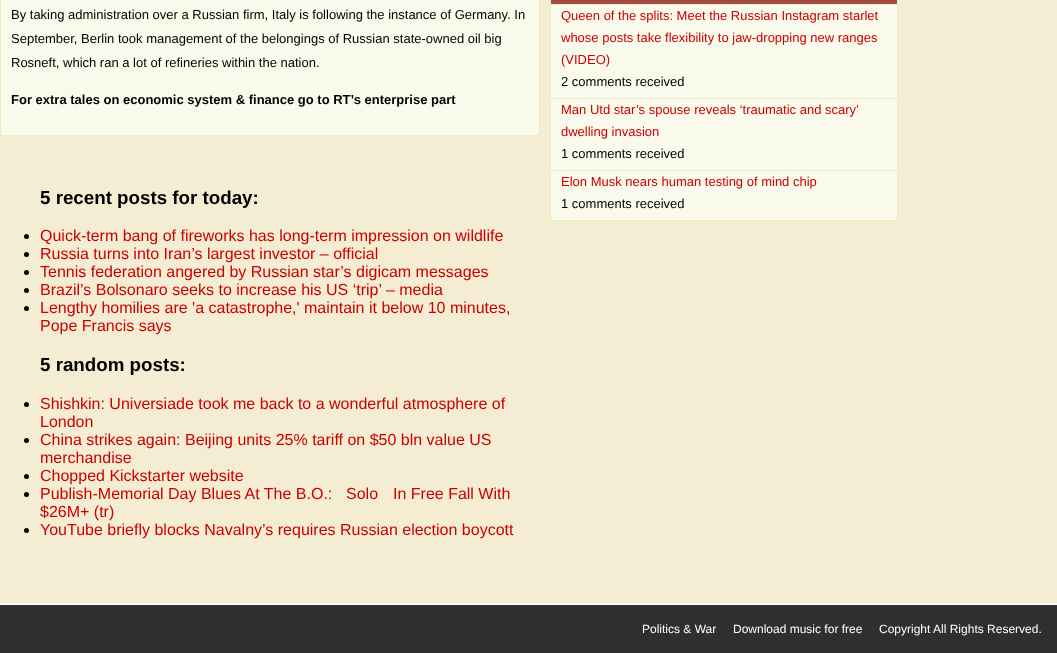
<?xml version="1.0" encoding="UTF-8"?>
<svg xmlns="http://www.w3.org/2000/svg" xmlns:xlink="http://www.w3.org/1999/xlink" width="1057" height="653">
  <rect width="100%" height="100%" fill="#f4edd3" />
  <rect x="0.5" y="-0.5" width="539" height="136" fill="#f9faec" stroke="#ebeebf" />
  <circle cx="26.5" cy="236.5" r="2.5" fill="#000000" />
  <circle cx="26.5" cy="254.5" r="2.5" fill="#000000" />
  <circle cx="26.5" cy="272.5" r="2.5" fill="#000000" />
  <circle cx="26.5" cy="290.5" r="2.5" fill="#000000" />
  <circle cx="26.5" cy="308.5" r="2.5" fill="#000000" />
  <circle cx="26.5" cy="404.5" r="2.5" fill="#000000" />
  <circle cx="26.5" cy="440.5" r="2.5" fill="#000000" />
  <circle cx="26.5" cy="476.5" r="2.5" fill="#000000" />
  <circle cx="26.5" cy="494.5" r="2.5" fill="#000000" />
  <circle cx="26.5" cy="530.5" r="2.5" fill="#000000" />
  <rect x="551" y="5" width="346" height="215" fill="#f9faec" />
  <rect x="550.5" y="-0.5" width="347" height="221" fill="none" stroke="#ebeebf" />
  <image x="551" y="0" width="346" height="4" xlink:href="image1.png" />
  <rect x="551" y="4" width="346" height="1" fill="#ebeebf" />
  <rect x="551" y="98" width="346" height="1" fill="#ebeebf" />
  <rect x="551" y="170" width="346" height="1" fill="#ebeebf" />
  <rect y="605" width="1057" height="48" fill="#2f2f2f" />
  <rect y="603" width="1057" height="2" fill="#ffffff" />
  <text x="11" y="19" style="font-family: Liberation Sans; font-size: 13px; fill: #000000">By taking administration over a Russian firm, Italy is following the instance of Germany. In</text>
  <text x="11" y="43" style="font-family: Liberation Sans; font-size: 13px; fill: #000000">September, Berlin took management of the belongings of Russian state-owned oil big</text>
  <text x="11" y="67" style="font-family: Liberation Sans; font-size: 13px; fill: #000000">Rosneft, which ran a lot of refineries within the nation.</text>
  <text x="11" y="104" style="font-family: Liberation Sans; font-size: 13px; font-weight: bold; fill: #000000">For extra tales on economic system &amp; finance go to RT’s enterprise part</text>
  <text x="40" y="204" style="font-family: Liberation Sans; font-size: 18.75px; font-weight: bold; fill: #000000">5 recent posts for today:</text>
  <text x="40" y="241" style="font-family: Liberation Sans; font-size: 16px; fill: #cc0000">Quick-term bang of fireworks has long-term impression on wildlife</text>
  <text x="40" y="259" style="font-family: Liberation Sans; font-size: 16px; fill: #cc0000">Russia turns into Iran’s largest investor – official</text>
  <text x="40" y="277" style="font-family: Liberation Sans; font-size: 16px; fill: #cc0000">Tennis federation angered by Russian star’s digicam messages</text>
  <text x="40" y="295" style="font-family: Liberation Sans; font-size: 16px; fill: #cc0000">Brazil’s Bolsonaro seeks to increase his US ‘trip’ – media</text>
  <text x="40" y="313" style="font-family: Liberation Sans; font-size: 16px; fill: #cc0000">Lengthy homilies are 'a catastrophe,' maintain it below 10 minutes,</text>
  <text x="40" y="331" style="font-family: Liberation Sans; font-size: 16px; fill: #cc0000">Pope Francis says</text>
  <text x="40" y="371" style="font-family: Liberation Sans; font-size: 18.75px; font-weight: bold; fill: #000000">5 random posts:</text>
  <text x="40" y="409" style="font-family: Liberation Sans; font-size: 16px; fill: #cc0000">Shishkin: Universiade took me back to a wonderful atmosphere of</text>
  <text x="40" y="427" style="font-family: Liberation Sans; font-size: 16px; fill: #cc0000">London</text>
  <text x="40" y="445" style="font-family: Liberation Sans; font-size: 16px; fill: #cc0000">China strikes again: Beijing units 25% tariff on $50 bln value US</text>
  <text x="40" y="463" style="font-family: Liberation Sans; font-size: 16px; fill: #cc0000">merchandise</text>
  <text x="40" y="481" style="font-family: Liberation Sans; font-size: 16px; fill: #cc0000">Chopped Kickstarter website</text>
  <text x="40" y="499" style="font-family: Liberation Sans; font-size: 16px; fill: #cc0000">Publish-Memorial Day Blues At The B.O.:</text>
  <text x="346" y="499" style="font-family: Liberation Sans; font-size: 16px; fill: #cc0000">Solo</text>
  <text x="393" y="499" style="font-family: Liberation Sans; font-size: 16px; fill: #cc0000">In Free Fall With</text>
  <text x="40" y="517" style="font-family: Liberation Sans; font-size: 16px; fill: #cc0000">$26M+ (tr)</text>
  <text x="40" y="535" style="font-family: Liberation Sans; font-size: 16px; fill: #cc0000">YouTube briefly blocks Navalny’s requires Russian election boycott</text>
  <text x="561" y="20" style="font-family: Liberation Sans; font-size: 13px; fill: #cc0000">Queen of the splits: Meet the Russian Instagram starlet</text>
  <text x="561" y="42" style="font-family: Liberation Sans; font-size: 13px; fill: #cc0000">whose posts take flexibility to jaw-dropping new ranges</text>
  <text x="561" y="64" style="font-family: Liberation Sans; font-size: 13px; fill: #cc0000">(VIDEO)</text>
  <text x="561" y="86" style="font-family: Liberation Sans; font-size: 13px; fill: #000000">2 comments received</text>
  <text x="561" y="114" style="font-family: Liberation Sans; font-size: 13px; fill: #cc0000">Man Utd star’s spouse reveals ‘traumatic and scary’</text>
  <text x="561" y="136" style="font-family: Liberation Sans; font-size: 13px; fill: #cc0000">dwelling invasion</text>
  <text x="561" y="158" style="font-family: Liberation Sans; font-size: 13px; fill: #000000">1 comments received</text>
  <text x="561" y="186" style="font-family: Liberation Sans; font-size: 13px; fill: #cc0000">Elon Musk nears human testing of mind chip</text>
  <text x="561" y="208" style="font-family: Liberation Sans; font-size: 13px; fill: #000000">1 comments received</text>
  <text x="642" y="633" style="font-family: Liberation Sans; font-size: 12px; fill: #ffffff">Politics &amp; War</text>
  <text x="733" y="633" style="font-family: Liberation Sans; font-size: 12px; fill: #ffffff">Download music for free</text>
  <text x="879" y="633" style="font-family: Liberation Sans; font-size: 12px; fill: #ffffff">Copyright All Rights Reserved.</text>
</svg>
